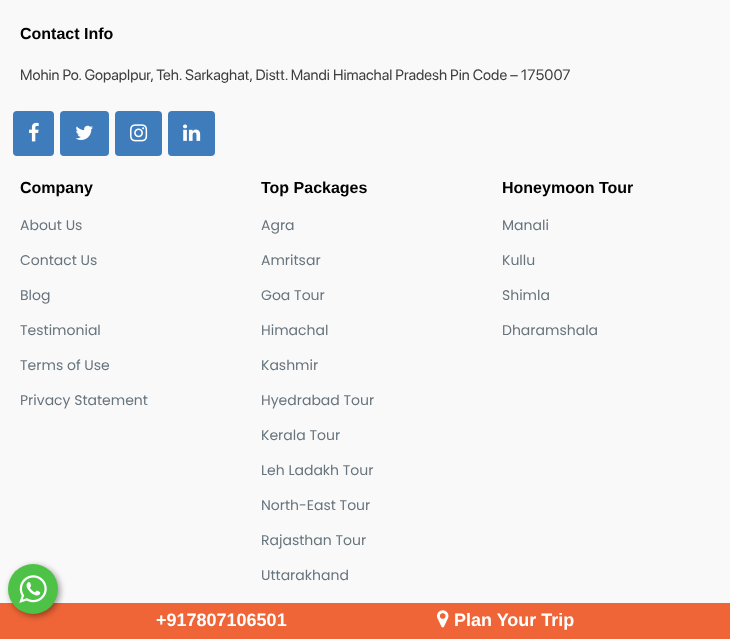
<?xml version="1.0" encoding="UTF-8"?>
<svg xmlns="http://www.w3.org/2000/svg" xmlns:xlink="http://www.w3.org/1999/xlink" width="730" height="639">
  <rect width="100%" height="100%" fill="#f9f9fa" />
  <rect x="13" y="111" width="41" height="45" rx="4" fill="#3e7cbb" />
  <image x="29" y="122" width="10" height="20" xlink:href="image1.png" />
  <rect x="60" y="111" width="49" height="45" rx="4" fill="#3e7cbb" />
  <image x="75" y="125" width="18" height="15" xlink:href="image2.png" />
  <rect x="115" y="111" width="47" height="45" rx="4" fill="#3e7cbb" />
  <image x="130" y="124" width="18" height="18" xlink:href="image3.png" />
  <rect x="168" y="111" width="47" height="45" rx="4" fill="#3e7cbb" />
  <image x="183" y="124" width="18" height="17" xlink:href="image4.png" />
  <rect y="603" width="730" height="36" fill="#ef6537" />
  <rect x="10" y="566" width="50" height="50" rx="25" fill="#000000" fill-opacity="0.4" filter="blur(3px)" />
  <circle cx="33" cy="589" r="25" fill="#4dc247" />
  <image x="19" y="575" width="28" height="28" xlink:href="image5.png" />
  <image x="437" y="610" width="12" height="18" xlink:href="image6.png" />
  <text x="20" y="39" style="font-family: Liberation Sans; font-size: 16px; font-weight: bold; fill: #000000">Contact Info</text>
  <text x="20" y="80" style="font-family: SF Pro Display; font-size: 15px; fill: #3e3e3e">Mohin Po. Gopaplpur, Teh. Sarkaghat, Distt. Mandi Himachal Pradesh Pin Code – 175007</text>
  <text x="20" y="193" style="font-family: Liberation Sans; font-size: 16px; font-weight: bold; fill: #000000">Company</text>
  <text x="20" y="230" style="font-family: Poppins; font-size: 14px; fill: #67747c">About Us</text>
  <text x="20" y="265" style="font-family: Poppins; font-size: 14px; fill: #67747c">Contact Us</text>
  <text x="20" y="300" style="font-family: Poppins; font-size: 14px; fill: #67747c">Blog</text>
  <text x="20" y="335" style="font-family: Poppins; font-size: 14px; fill: #67747c">Testimonial</text>
  <text x="20" y="370" style="font-family: Poppins; font-size: 14px; fill: #67747c">Terms of Use</text>
  <text x="20" y="405" style="font-family: Poppins; font-size: 14px; fill: #67747c">Privacy Statement</text>
  <text x="261" y="193" style="font-family: Liberation Sans; font-size: 16px; font-weight: bold; fill: #000000">Top Packages</text>
  <text x="261" y="230" style="font-family: Poppins; font-size: 14px; fill: #67747c">Agra</text>
  <text x="261" y="265" style="font-family: Poppins; font-size: 14px; fill: #67747c">Amritsar</text>
  <text x="261" y="300" style="font-family: Poppins; font-size: 14px; fill: #67747c">Goa Tour</text>
  <text x="261" y="335" style="font-family: Poppins; font-size: 14px; fill: #67747c">Himachal</text>
  <text x="261" y="370" style="font-family: Poppins; font-size: 14px; fill: #67747c">Kashmir</text>
  <text x="261" y="405" style="font-family: Poppins; font-size: 14px; fill: #67747c">Hyedrabad Tour</text>
  <text x="261" y="440" style="font-family: Poppins; font-size: 14px; fill: #67747c">Kerala Tour</text>
  <text x="261" y="475" style="font-family: Poppins; font-size: 14px; fill: #67747c">Leh Ladakh Tour</text>
  <text x="261" y="510" style="font-family: Poppins; font-size: 14px; fill: #67747c">North-East Tour</text>
  <text x="261" y="545" style="font-family: Poppins; font-size: 14px; fill: #67747c">Rajasthan Tour</text>
  <text x="261" y="580" style="font-family: Poppins; font-size: 14px; fill: #67747c">Uttarakhand</text>
  <text x="502" y="193" style="font-family: Liberation Sans; font-size: 16px; font-weight: bold; fill: #000000">Honeymoon Tour</text>
  <text x="502" y="230" style="font-family: Poppins; font-size: 14px; fill: #67747c">Manali</text>
  <text x="502" y="265" style="font-family: Poppins; font-size: 14px; fill: #67747c">Kullu</text>
  <text x="502" y="300" style="font-family: Poppins; font-size: 14px; fill: #67747c">Shimla</text>
  <text x="502" y="335" style="font-family: Poppins; font-size: 14px; fill: #67747c">Dharamshala</text>
  <text x="156" y="626" style="font-family: Liberation Sans; font-size: 18px; font-weight: bold; fill: #ffffff">+917807106501</text>
  <text x="454" y="626" style="font-family: Liberation Sans; font-size: 18px; font-weight: bold; fill: #ffffff">Plan Your Trip</text>
</svg>
